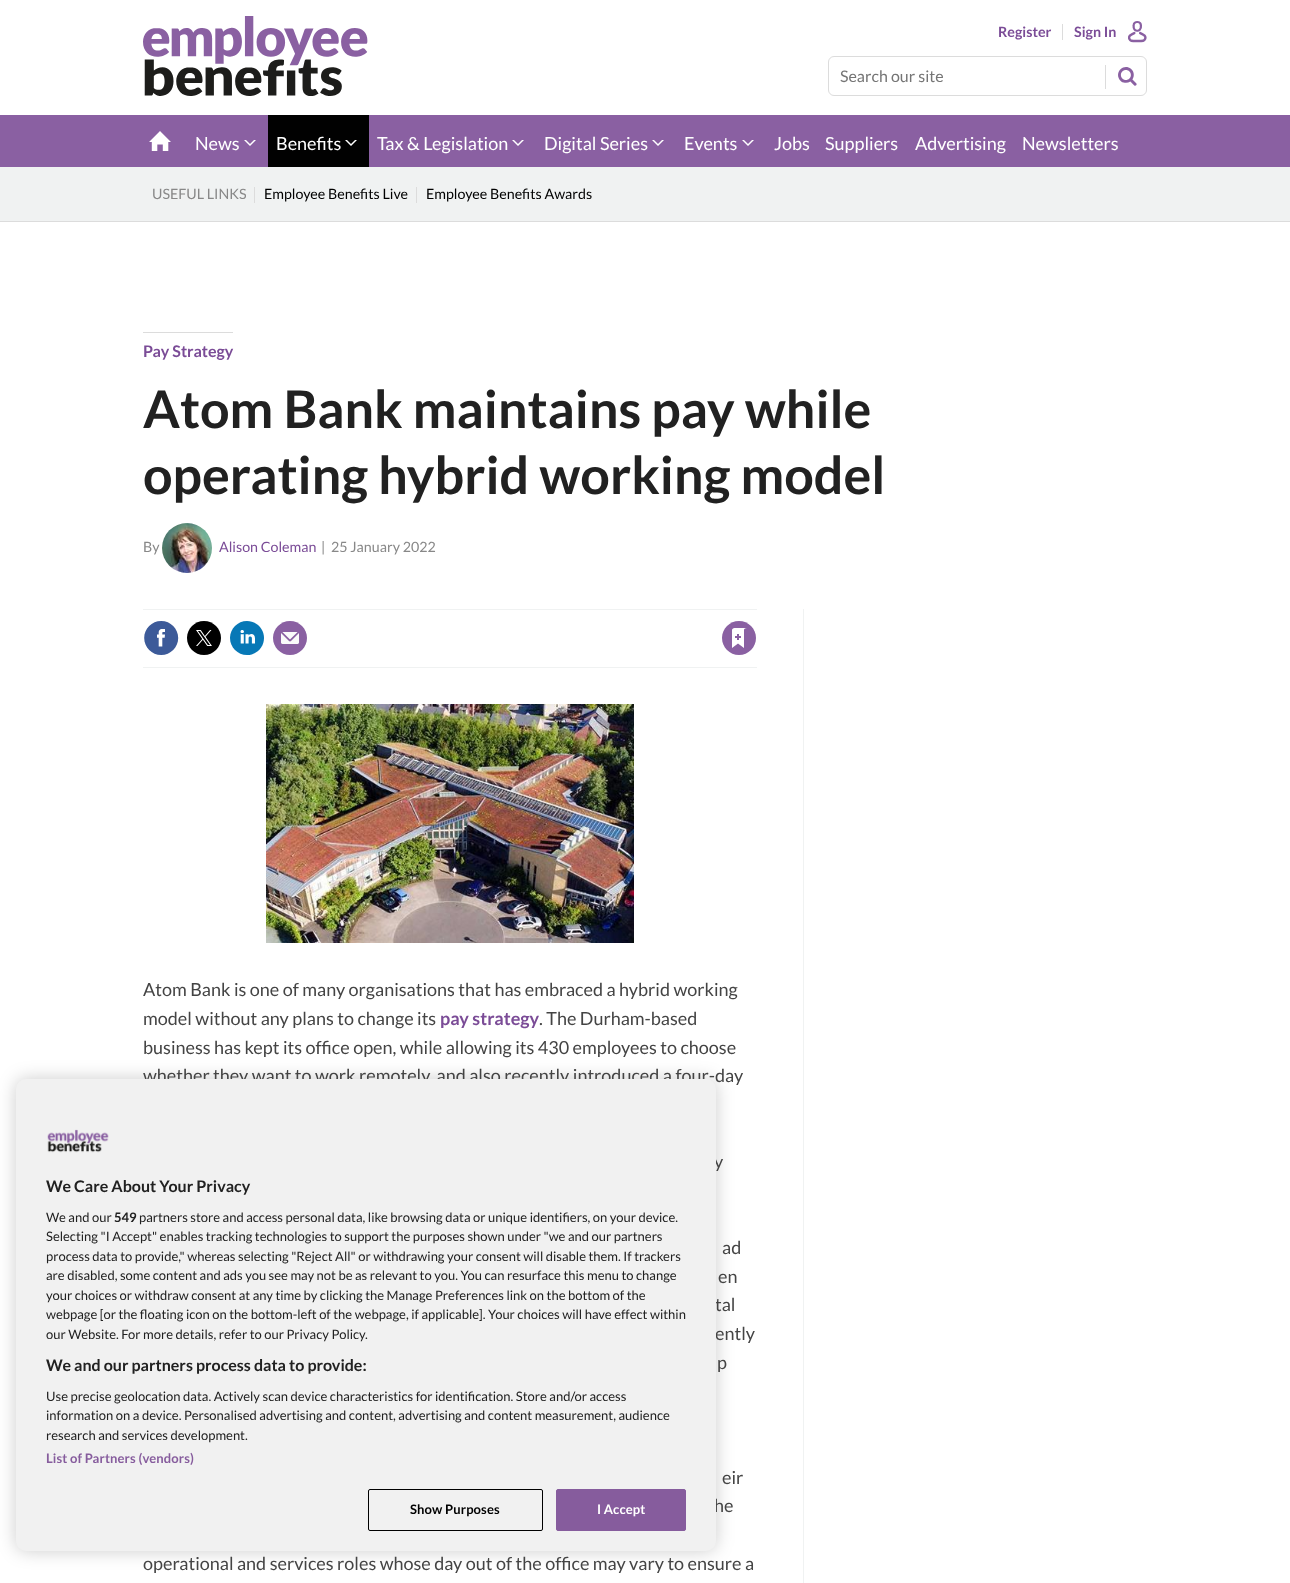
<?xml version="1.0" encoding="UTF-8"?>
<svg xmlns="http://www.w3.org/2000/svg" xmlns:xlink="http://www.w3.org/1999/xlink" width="1290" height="1583">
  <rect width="100%" height="100%" fill="#ffffff" />
  <image x="143" y="16" width="225" height="80" xlink:href="image1.png" />
  <rect x="1062" y="24" width="1" height="16" fill="#dcdcdc" />
  <image x="1128" y="21" width="19" height="22" xlink:href="image2.png" />
  <rect x="828.5" y="56.5" width="318" height="39" rx="5.5" fill="none" stroke="#dcdcdc" />
  <image x="1118" y="67" width="19" height="19" xlink:href="image3.png" />
  <rect x="1105" y="65" width="1" height="24" fill="#dcdcdc" />
  <rect y="115" width="1290" height="52" fill="#8a60a2" />
  <image x="149" y="131" width="22" height="20" xlink:href="image4.png" />
  <image x="244" y="140" width="12" height="6" xlink:href="image5.png" />
  <rect x="268" y="115" width="101" height="52" fill="#010101" />
  <image x="345" y="140" width="12" height="6" xlink:href="image6.png" />
  <image x="512" y="140" width="12" height="6" xlink:href="image5.png" />
  <image x="652" y="140" width="12" height="6" xlink:href="image5.png" />
  <image x="742" y="140" width="12" height="6" xlink:href="image5.png" />
  <rect y="167" width="1290" height="54" fill="#f0f2f2" />
  <rect y="221" width="1290" height="1" fill="#dcdcdc" />
  <rect x="254" y="187" width="1" height="16" fill="#dcdcdc" />
  <rect x="416" y="187" width="1" height="16" fill="#dcdcdc" />
  <rect x="143" y="332" width="90" height="1" fill="#dcdcdc" />
  <image x="162" y="523" width="50" height="50" xlink:href="image7.png" />
  <rect x="803" y="609" width="1" height="974" fill="#f0f2f2" />
  <rect x="143" y="609" width="614" height="1" fill="#f0f2f2" />
  <rect x="143" y="667" width="614" height="1" fill="#f0f2f2" />
  <image x="144" y="621" width="35" height="34" xlink:href="image8.png" />
  <image x="187" y="621" width="34" height="34" xlink:href="image9.png" />
  <image x="230" y="621" width="34" height="34" xlink:href="image10.png" />
  <image x="273" y="621" width="34" height="34" xlink:href="image11.png" />
  <image x="722" y="621" width="34" height="34" xlink:href="image12.png" />
  <image x="266" y="704" width="368" height="239" xlink:href="image13.png" />
  <rect x="16" y="1079" width="700" height="472" rx="10" fill="#000000" fill-opacity="0.2" filter="blur(9px)" />
  <text x="998" y="37" style="font-family: Lato; font-size: 14.25px; font-weight: bold; fill: #7b4c97">Register</text>
  <text x="1074" y="37" style="font-family: Lato; font-size: 14.25px; font-weight: bold; fill: #7b4c97">Sign In</text>
  <text x="840" y="82" style="font-family: Lato; font-size: 16px; fill: #757575">Search our site</text>
  <text x="195" y="150" style="font-family: Lato; font-size: 18px; fill: #ffffff">News</text>
  <text x="276" y="150" style="font-family: Lato; font-size: 18px; fill: #ffffff">Benefits</text>
  <text x="377" y="150" style="font-family: Lato; font-size: 18px; fill: #ffffff">Tax &amp; Legislation</text>
  <text x="544" y="150" style="font-family: Lato; font-size: 18px; fill: #ffffff">Digital Series</text>
  <text x="684" y="150" style="font-family: Lato; font-size: 18px; fill: #ffffff">Events</text>
  <text x="774" y="150" style="font-family: Lato; font-size: 18px; fill: #ffffff">Jobs</text>
  <text x="825" y="150" style="font-family: Lato; font-size: 18px; fill: #ffffff">Suppliers</text>
  <text x="915" y="150" style="font-family: Lato; font-size: 18px; fill: #ffffff">Advertising</text>
  <text x="1022" y="150" style="font-family: Lato; font-size: 18px; fill: #ffffff">Newsletters</text>
  <text x="152" y="199" style="font-family: Lato; font-size: 14.25px; fill: #888888">USEFUL LINKS</text>
  <text x="264" y="199" style="font-family: Lato; font-size: 14.25px; fill: #010101">Employee Benefits Live</text>
  <text x="426" y="199" style="font-family: Lato; font-size: 14.25px; fill: #010101">Employee Benefits Awards</text>
  <text x="143" y="357" style="font-family: Lato; font-size: 16px; font-weight: bold; fill: #7b4c97">Pay Strategy</text>
  <text x="143" y="428" style="font-family: Lato; font-size: 52px; font-weight: bold; fill: #212121">Atom Bank maintains pay while</text>
  <text x="143" y="494" style="font-family: Lato; font-size: 52px; font-weight: bold; fill: #212121">operating hybrid working model</text>
  <text x="143" y="552" style="font-family: Lato; font-size: 14.25px; fill: #888888">By</text>
  <text x="219" y="552" style="font-family: Lato; font-size: 14.25px; fill: #7b4c97">Alison Coleman</text>
  <text x="321" y="552" style="font-family: Lato; font-size: 14.25px; fill: #888888">|</text>
  <text x="331" y="552" style="font-family: Lato; font-size: 14.25px; fill: #888888">25 January 2022</text>
  <text x="143" y="996" style="font-family: Lato; font-size: 18px; fill: #444444">Atom Bank is one of many organisations that has embraced a hybrid working</text>
  <text x="143" y="1025" style="font-family: Lato; font-size: 18px; fill: #444444">model without any plans to change its</text>
  <text x="440" y="1025" style="font-family: Lato; font-size: 18px; font-weight: bold; fill: #7b4c97">pay strategy</text>
  <text x="539" y="1025" style="font-family: Lato; font-size: 18px; fill: #444444">. The Durham-based</text>
  <text x="143" y="1054" style="font-family: Lato; font-size: 18px; fill: #444444">business has kept its office open, while allowing its 430 employees to choose</text>
  <text x="143" y="1082" style="font-family: Lato; font-size: 18px; fill: #444444">whether they want to work remotely, and also recently introduced a four-day</text>
  <text x="714" y="1168" style="font-family: Lato; font-size: 18px; fill: #444444">y</text>
  <text x="722" y="1254" style="font-family: Lato; font-size: 18px; fill: #444444">ad</text>
  <text x="718" y="1283" style="font-family: Lato; font-size: 18px; fill: #444444">en</text>
  <text x="715" y="1311" style="font-family: Lato; font-size: 18px; fill: #444444">tal</text>
  <text x="715" y="1340" style="font-family: Lato; font-size: 18px; fill: #444444">ently</text>
  <text x="717" y="1369" style="font-family: Lato; font-size: 18px; fill: #444444">p</text>
  <text x="722" y="1484" style="font-family: Lato; font-size: 18px; fill: #444444">eir</text>
  <text x="714" y="1512" style="font-family: Lato; font-size: 18px; fill: #444444">he</text>
  <text x="143" y="1570" style="font-family: Lato; font-size: 18px; fill: #444444">operational and services roles whose day out of the office may vary to ensure a</text>
  <rect x="16" y="1079" width="700" height="472" rx="10" fill="#f1f1f1" />
  <text x="46" y="1192" style="font-family: Lato; font-size: 16px; font-weight: bold; fill: #212121">We Care About Your Privacy</text>
  <text x="46" y="1222" style="font-family: Lato; font-size: 13px; fill: #212121">We and our</text>
  <text x="114" y="1222" style="font-family: Lato; font-size: 13px; font-weight: bold; fill: #212121">549</text>
  <text x="139" y="1222" style="font-family: Lato; font-size: 13px; fill: #212121">partners store and access personal data, like browsing data or unique identifiers, on your device.</text>
  <text x="46" y="1241" style="font-family: Lato; font-size: 13px; fill: #212121">Selecting "I Accept" enables tracking technologies to support the purposes shown under "we and our partners</text>
  <text x="46" y="1261" style="font-family: Lato; font-size: 13px; fill: #212121">process data to provide," whereas selecting "Reject All" or withdrawing your consent will disable them. If trackers</text>
  <text x="46" y="1280" style="font-family: Lato; font-size: 13px; fill: #212121">are disabled, some content and ads you see may not be as relevant to you. You can resurface this menu to change</text>
  <text x="46" y="1300" style="font-family: Lato; font-size: 13px; fill: #212121">your choices or withdraw consent at any time by clicking the Manage Preferences link on the bottom of the</text>
  <text x="46" y="1319" style="font-family: Lato; font-size: 13px; fill: #212121">webpage [or the floating icon on the bottom-left of the webpage, if applicable]. Your choices will have effect within</text>
  <text x="46" y="1339" style="font-family: Lato; font-size: 13px; fill: #212121">our Website. For more details, refer to our Privacy Policy.</text>
  <text x="46" y="1371" style="font-family: Lato; font-size: 16px; font-weight: bold; fill: #212121">We and our partners process data to provide:</text>
  <text x="46" y="1401" style="font-family: Lato; font-size: 13px; fill: #212121">Use precise geolocation data. Actively scan device characteristics for identification. Store and/or access</text>
  <text x="46" y="1420" style="font-family: Lato; font-size: 13px; fill: #212121">information on a device. Personalised advertising and content, advertising and content measurement, audience</text>
  <text x="46" y="1440" style="font-family: Lato; font-size: 13px; fill: #212121">research and services development.</text>
  <text x="46" y="1463" style="font-family: Lato; font-size: 13px; font-weight: bold; letter-spacing: 0.1px; fill: #865c9d">List of Partners (vendors)</text>
  <image x="47" y="1129" width="62" height="24" xlink:href="image14.png" />
  <rect x="368.5" y="1489.5" width="174" height="41" rx="1.5" fill="none" stroke="#000000" />
  <text x="410" y="1514" style="font-family: Lato; font-size: 13px; font-weight: bold; letter-spacing: 0.1px; fill: #010101">Show Purposes</text>
  <rect x="556.5" y="1489.5" width="129" height="41" rx="1.5" fill="#865c9d" stroke="#865c9d" />
  <text x="597" y="1514" style="font-family: Lato; font-size: 13px; font-weight: bold; letter-spacing: 0.1px; fill: #ffffff">I Accept</text>
</svg>
